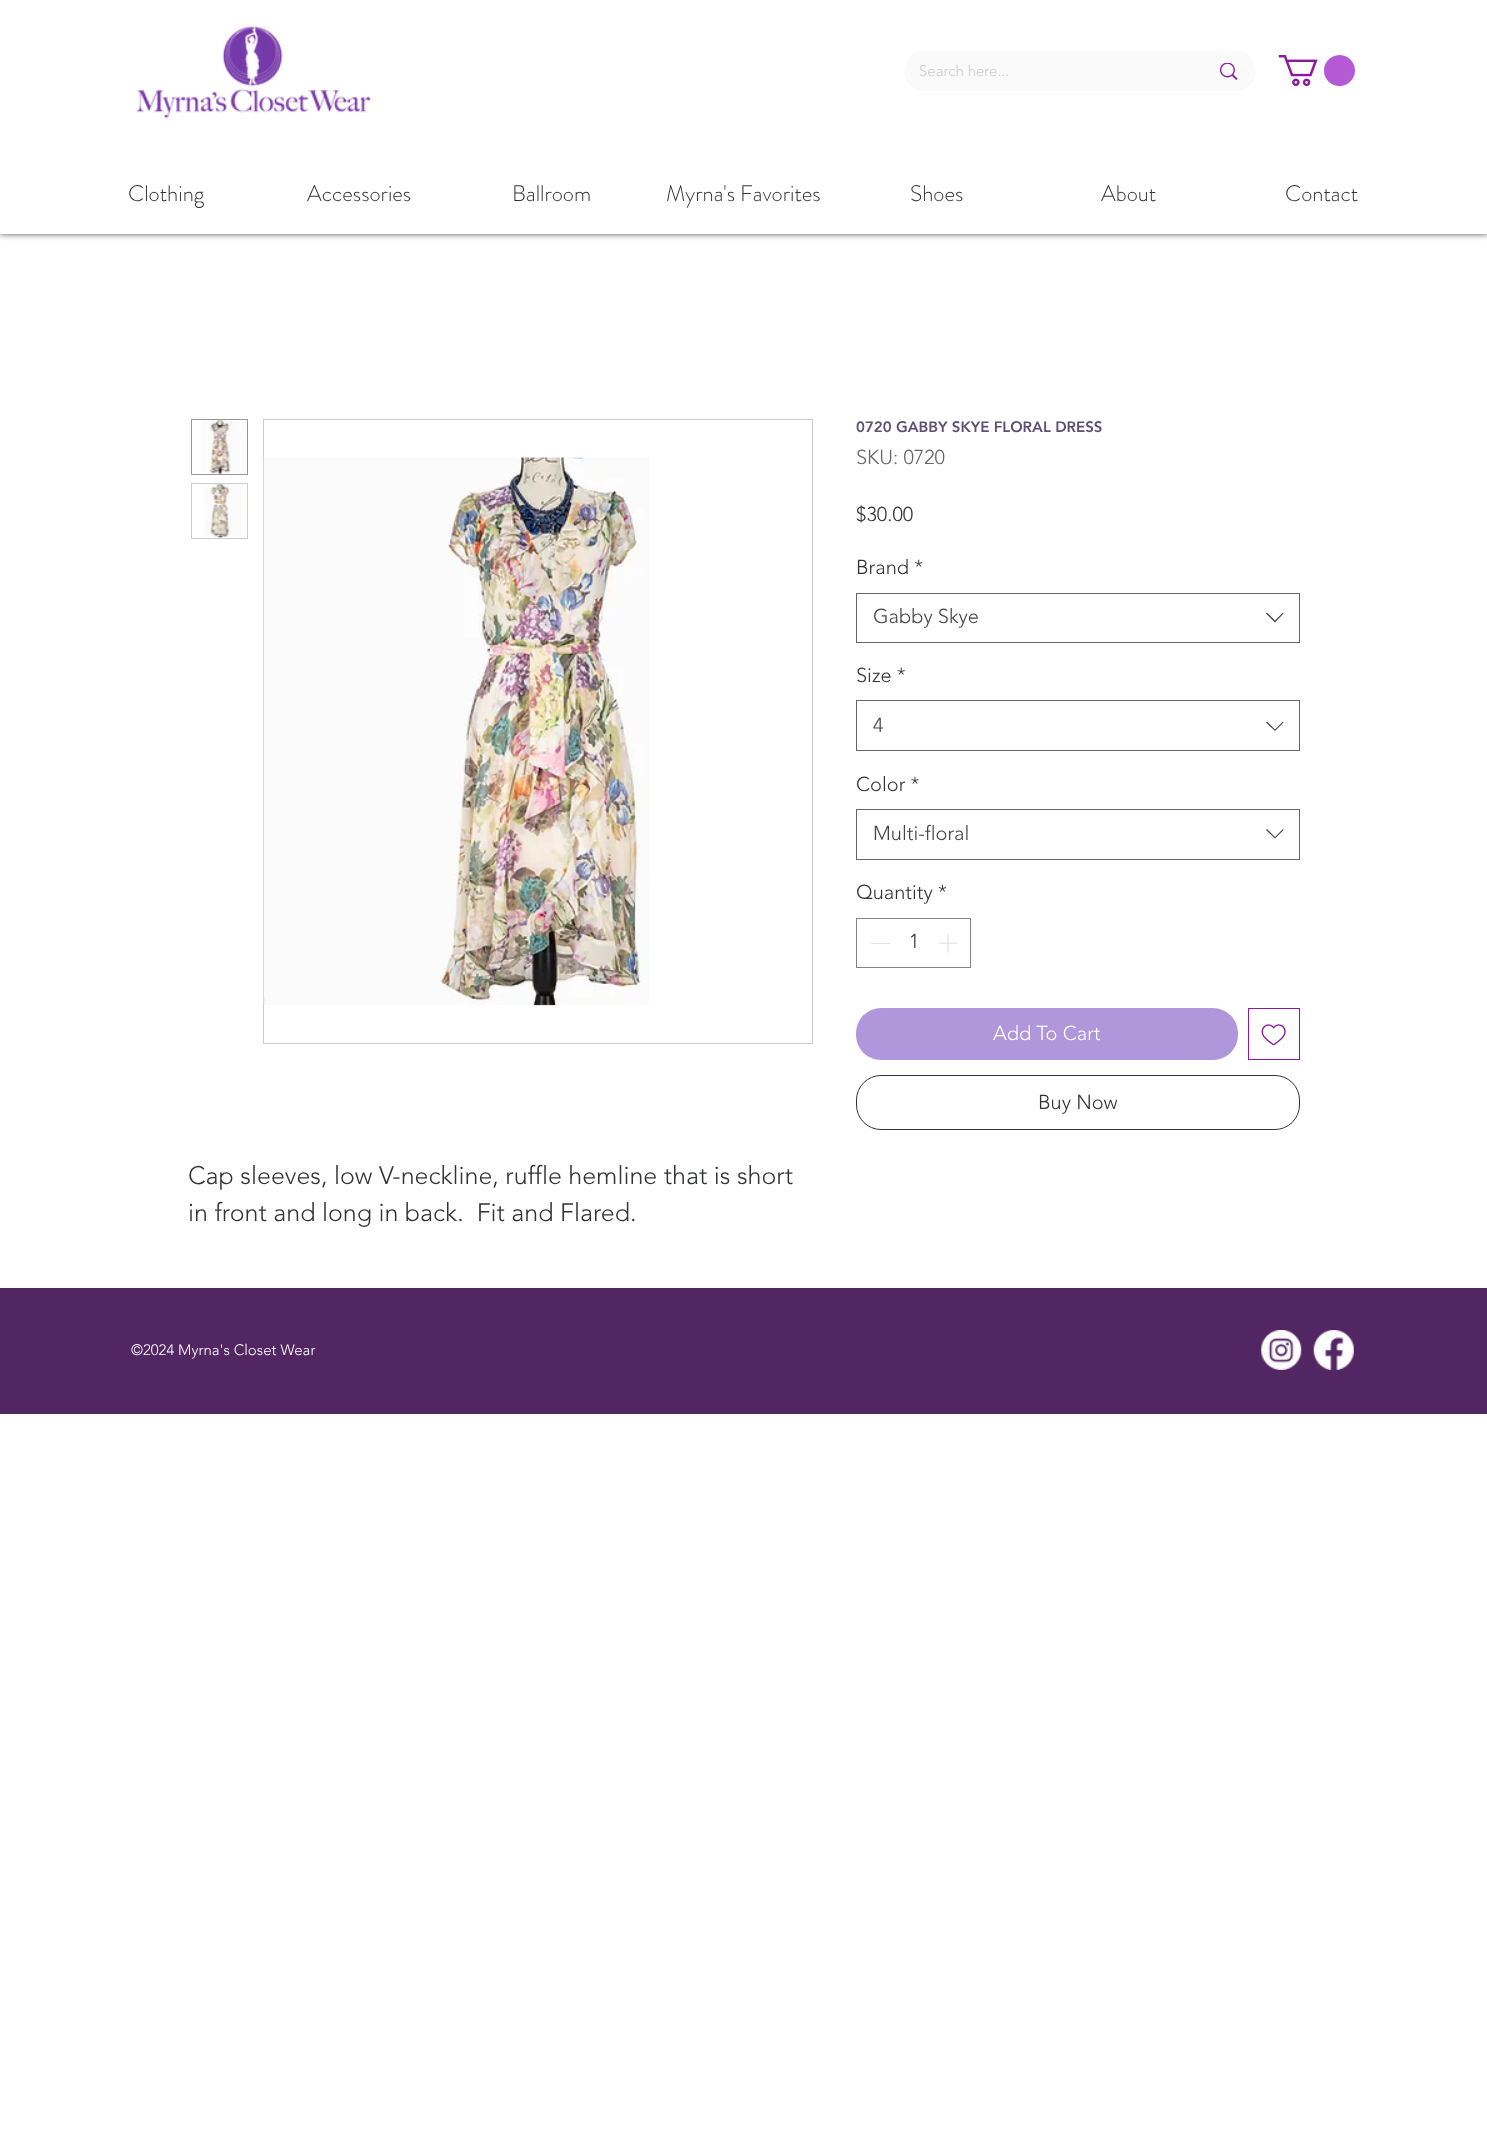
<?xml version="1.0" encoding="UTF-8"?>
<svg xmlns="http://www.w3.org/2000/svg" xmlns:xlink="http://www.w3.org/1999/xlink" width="1487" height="2131">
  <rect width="100%" height="100%" fill="#ffffff" />
  <rect width="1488" height="234" fill="#000000" fill-opacity="0.7" filter="blur(3px)" />
  <rect width="1487" height="234" fill="#ffffff" />
  <image x="136" y="26" width="235" height="92" xlink:href="image1.png" />
  <rect x="904" y="51" width="352" height="40" rx="20" fill="#fafafa" />
  <image x="1220" y="63" width="18" height="17" xlink:href="image2.png" />
  <image x="1278" y="55" width="77" height="32" xlink:href="image3.png" />
  <rect x="856.5" y="593.5" width="443" height="49" fill="none" stroke="#666666" />
  <path d="M 1283 612.5 l 0.5 1 l -8.5 9 l -9 -9 l 1 -1 l 8 8 z" fill="#444444" fill-rule="evenodd" />
  <rect x="856.5" y="700.5" width="443" height="50" fill="none" stroke="#666666" />
  <path d="M 1283 721.5 l 0.5 1 l -8.5 8.5 l -9 -8.5 l 1 -1 l 8 8 z" fill="#444444" fill-rule="evenodd" />
  <rect x="856.5" y="809.5" width="443" height="50" fill="none" stroke="#666666" />
  <path d="M 1283 829 l 0.5 1 l -8.5 8.5 l -9 -8.5 l 1 -1 l 8 8 z" fill="#444444" fill-rule="evenodd" />
  <rect x="856.5" y="918.5" width="114" height="49" fill="none" stroke="#848585" />
  <rect x="871" y="943" width="19" height="1" fill="#e3e3e3" />
  <image x="938" y="933" width="20" height="20" xlink:href="image4.png" />
  <rect x="856" y="1008" width="382" height="52" rx="25" fill="#b097db" />
  <rect x="1248.5" y="1008.5" width="51" height="51" fill="none" stroke="#8b1a9d" />
  <image x="1261" y="1024" width="25" height="22" xlink:href="image5.png" />
  <rect x="856.5" y="1075.5" width="443" height="54" rx="24.5" fill="none" stroke="#323333" />
  <rect x="191.5" y="419.5" width="56" height="55" fill="none" stroke="#979899" />
  <image x="202" y="420" width="43" height="54" xlink:href="image6.png" />
  <rect x="191.5" y="483.5" width="56" height="55" fill="none" stroke="#cacbcc" />
  <image x="205" y="484" width="40" height="54" xlink:href="image7.png" />
  <rect x="263.5" y="419.5" width="549" height="624" fill="none" stroke="#cacbcc" />
  <image x="263" y="457" width="386" height="549" xlink:href="image8.png" />
  <rect y="1288" width="1487" height="126" fill="#522662" />
  <image x="1261" y="1330" width="41" height="40" xlink:href="image9.png" />
  <image x="1313" y="1330" width="41" height="40" xlink:href="image10.png" />
  <text x="919" y="76" style="font-family: 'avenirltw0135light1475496'; font-size: 15px; font-weight: 300; fill: #cccccc">Search here...</text>
  <text x="128" y="201" style="font-family: 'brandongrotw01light'; font-size: 22.5px; font-weight: 300; fill: #323333">Clothing</text>
  <text x="307" y="201" style="font-family: 'brandongrotw01light'; font-size: 22.5px; font-weight: 300; fill: #323333">Accessories</text>
  <text x="512" y="201" style="font-family: 'brandongrotw01light'; font-size: 22.5px; font-weight: 300; fill: #323333">Ballroom</text>
  <text x="666" y="201" style="font-family: 'brandongrotw01light'; font-size: 22.5px; font-weight: 300; fill: #323333">Myrna's Favorites</text>
  <text x="910" y="201" style="font-family: 'brandongrotw01light'; font-size: 22.5px; font-weight: 300; fill: #323333">Shoes</text>
  <text x="1101" y="201" style="font-family: 'brandongrotw01light'; font-size: 22.5px; font-weight: 300; fill: #323333">About</text>
  <text x="1285" y="201" style="font-family: 'brandongrotw01light'; font-size: 22.5px; font-weight: 300; fill: #323333">Contact</text>
  <text x="856" y="432" style="font-family: 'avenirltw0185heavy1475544'; font-size: 15px; font-weight: 900; fill: #5d5075">0720 GABBY SKYE FLORAL DRESS</text>
  <text x="856" y="464" style="font-family: 'avenirltw0135light1475496'; font-size: 20px; font-weight: 300; fill: #656666">SKU: 0720</text>
  <text x="856" y="521" style="font-family: 'avenirltw0135light1475496'; font-size: 20px; font-weight: 300; fill: #323333">$30.00</text>
  <text x="856" y="574" style="font-family: 'avenirltw0135light1475496'; font-size: 20px; font-weight: 300; fill: #323333">Brand *</text>
  <text x="873" y="623" style="font-family: 'avenirltw0135light1475496'; font-size: 20px; font-weight: 300; fill: #444444">Gabby Skye</text>
  <text x="856" y="682" style="font-family: 'avenirltw0135light1475496'; font-size: 20px; font-weight: 300; fill: #323333">Size *</text>
  <text x="873" y="732" style="font-family: 'avenirltw0135light1475496'; font-size: 20px; font-weight: 300; fill: #444444">4</text>
  <text x="856" y="791" style="font-family: 'avenirltw0135light1475496'; font-size: 20px; font-weight: 300; fill: #323333">Color *</text>
  <text x="873" y="840" style="font-family: 'avenirltw0135light1475496'; font-size: 20px; font-weight: 300; fill: #444444">Multi-floral</text>
  <text x="856" y="899" style="font-family: 'avenirltw0135light1475496'; font-size: 20px; font-weight: 300; fill: #323333">Quantity *</text>
  <text x="909" y="948" style="font-family: 'avenirltw0135light1475496'; font-size: 20px; font-weight: 300; fill: #323333">1</text>
  <text x="993" y="1040" style="font-family: 'avenirltw0135light1475496'; font-size: 20px; font-weight: 300; fill: #ffffff">Add To Cart</text>
  <text x="1038" y="1109" style="font-family: 'avenirltw0135light1475496'; font-size: 20px; font-weight: 300; fill: #323333">Buy Now</text>
  <text x="188" y="1184" style="font-family: 'avenirltw0135light1475496'; font-size: 25px; font-weight: 300; fill: #323333">Cap sleeves, low V-neckline, ruffle hemline that is short</text>
  <text x="188" y="1221" style="font-family: 'avenirltw0135light1475496'; font-size: 25px; font-weight: 300; fill: #323333" xml:space="preserve">in front and long in back.  Fit and Flared.</text>
  <text x="131" y="1355" style="font-family: 'avenirltw0135light1475496'; font-size: 15px; font-weight: 300; fill: #ffffff">©2024 Myrna's Closet Wear</text>
</svg>
